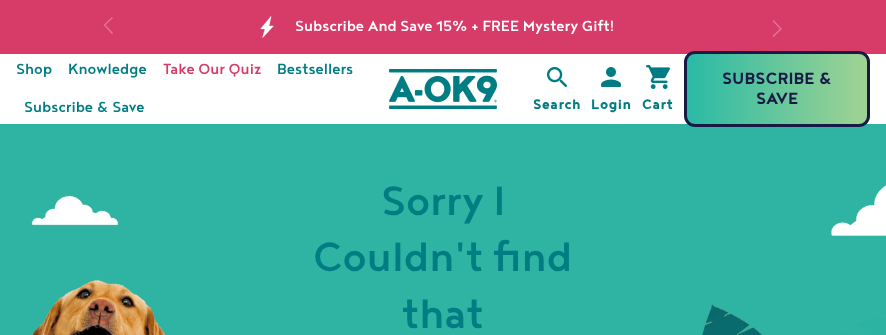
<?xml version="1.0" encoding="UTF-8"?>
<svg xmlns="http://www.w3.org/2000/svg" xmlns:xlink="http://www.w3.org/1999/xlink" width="886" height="335">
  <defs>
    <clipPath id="clip1"><rect x="773" y="20" width="10" height="18" /></clipPath>
    <clipPath id="clip2"><rect x="684" y="51" width="186" height="76" rx="11" /></clipPath>
    <linearGradient id="g1" gradientUnits="userSpaceOnUse" x1="687" y1="89" x2="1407" y2="89"><stop offset="0" stop-color="#29baa6" /><stop offset="0.33" stop-color="#c7db8c" /><stop offset="0.67" stop-color="#29baa6" /><stop offset="1" stop-color="#c7db8c" /></linearGradient>
  </defs>
  <rect width="100%" height="100%" fill="#2fb3a2" />
  <rect width="886" height="54" fill="#d73c68" />
  <path d="M 112.5 17.5 l -8 7.5 l 8 8.5" fill="none" stroke="#e37795" stroke-width="1.3" />
  <image x="260" y="16" width="14" height="22" xlink:href="image1.png" />
  <g clip-path="url(#clip1)">
    <path d="M 773 36.5 l 8 -7.5 l -8 -8.5" fill="none" stroke="#e37795" stroke-width="1.3" />
  </g>
  <rect y="54" width="886" height="70" fill="#ffffff" />
  <image x="389" y="69" width="108" height="40" xlink:href="image2.png" />
  <image x="547" y="67" width="20" height="20" xlink:href="image3.png" />
  <image x="601" y="67" width="20" height="20" xlink:href="image4.png" />
  <image x="646" y="65" width="24" height="24" xlink:href="image5.png" />
  <g clip-path="url(#clip2)">
    <path d="M 687 51 h 172 c 6 0 11 5 11 11 v 54 c 0 6 -5 11 -11 11 h -172 z" fill="url(#g1)" />
  </g>
  <rect x="685.5" y="52.5" width="183" height="73" rx="9.5" fill="none" stroke="#171a45" stroke-width="3" />
  <image x="31" y="185" width="855" height="150" xlink:href="image6.png" />
  <text x="295" y="31" style="font-family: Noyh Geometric; font-size: 18px; font-weight: 500; fill: #ffffff">Subscribe And Save 15% + FREE Mystery Gift!</text>
  <text x="16" y="74" style="font-family: Noyh Geometric; font-size: 18px; font-weight: 500; fill: #007d83">Shop</text>
  <text x="68" y="74" style="font-family: Noyh Geometric; font-size: 18px; font-weight: 500; fill: #007d83">Knowledge</text>
  <text x="163" y="74" style="font-family: Noyh Geometric; font-size: 18px; font-weight: 500; fill: #d73c68">Take Our Quiz</text>
  <text x="277" y="74" style="font-family: Noyh Geometric; font-size: 18px; font-weight: 500; fill: #007d83">Bestsellers</text>
  <text x="24" y="112" style="font-family: Noyh Geometric; font-size: 18px; font-weight: 500; fill: #007d83">Subscribe &amp; Save</text>
  <text x="533" y="109" style="font-family: Noyh Geometric; font-size: 16px; font-weight: bold; letter-spacing: 1px; fill: #007d83">Search</text>
  <text x="591" y="109" style="font-family: Noyh Geometric; font-size: 16px; font-weight: bold; letter-spacing: 1px; fill: #007d83">Login</text>
  <text x="642" y="109" style="font-family: Noyh Geometric; font-size: 16px; font-weight: bold; letter-spacing: 1px; fill: #007d83">Cart</text>
  <text x="722" y="84" style="font-family: 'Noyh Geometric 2'; font-size: 20px; font-weight: bold; fill: #171a45">SUBSCRIBE &amp;</text>
  <text x="756" y="104" style="font-family: 'Noyh Geometric 2'; font-size: 20px; font-weight: bold; fill: #171a45">SAVE</text>
  <text x="381" y="215" style="font-family: Noyh Geometric; font-size: 50px; font-weight: 500; fill: #007d83">Sorry I</text>
  <text x="313" y="271" style="font-family: Noyh Geometric; font-size: 50px; font-weight: 500; fill: #007d83">Couldn't find</text>
  <text x="402" y="328" style="font-family: Noyh Geometric; font-size: 50px; font-weight: 500; fill: #007d83">that</text>
</svg>
